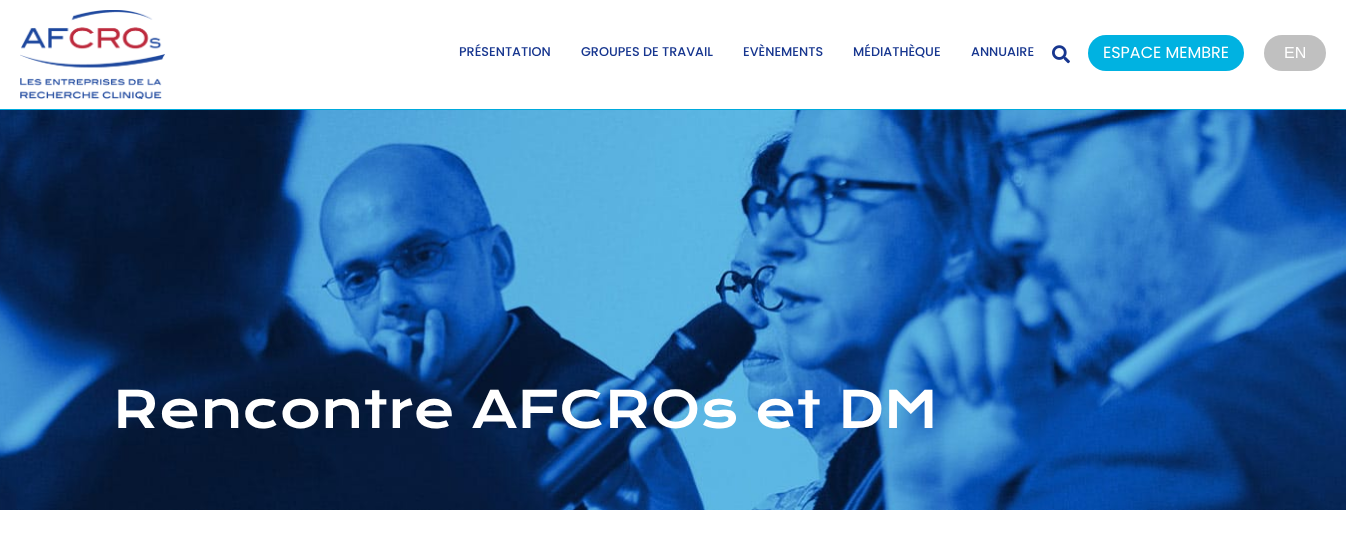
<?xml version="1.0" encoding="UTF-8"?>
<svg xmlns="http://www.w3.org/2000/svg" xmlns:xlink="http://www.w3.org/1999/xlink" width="1346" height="553">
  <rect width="100%" height="100%" fill="#ffffff" />
  <image x="20" y="10" width="145" height="89" xlink:href="image1.png" />
  <image x="1052" y="45" width="18" height="19" xlink:href="image2.png" />
  <rect x="1088" y="35" width="156" height="36" rx="18" fill="#00b2e1" />
  <rect x="1264" y="35" width="62" height="36" rx="18" fill="#c0c0c0" />
  <rect y="109" width="1346" height="1" fill="#00aadd" />
  <image x="0" y="110" width="1346" height="400" xlink:href="image3.png" />
  <text x="459" y="56" style="font-family: Poppins; font-size: 12.75px; font-weight: 500; fill: #17368f">PRÉSENTATION</text>
  <text x="581" y="56" style="font-family: Poppins; font-size: 12.75px; font-weight: 500; fill: #17368f">GROUPES DE TRAVAIL</text>
  <text x="743" y="56" style="font-family: Poppins; font-size: 12.75px; font-weight: 500; fill: #17368f">EVÈNEMENTS</text>
  <text x="853" y="56" style="font-family: Poppins; font-size: 12.75px; font-weight: 500; fill: #17368f">MÉDIATHÈQUE</text>
  <text x="971" y="56" style="font-family: Poppins; font-size: 12.75px; font-weight: 500; fill: #17368f">ANNUAIRE</text>
  <text x="1103" y="58" style="font-family: Poppins; font-size: 16px; fill: #ffffff">ESPACE MEMBRE</text>
  <text x="1284" y="58" style="font-family: Liberation Sans; font-size: 16px; fill: #ffffff">EN</text>
  <text x="113" y="428" style="font-family: Krona One; font-size: 50px; fill: #ffffff">Rencontre AFCROs et DM</text>
</svg>
